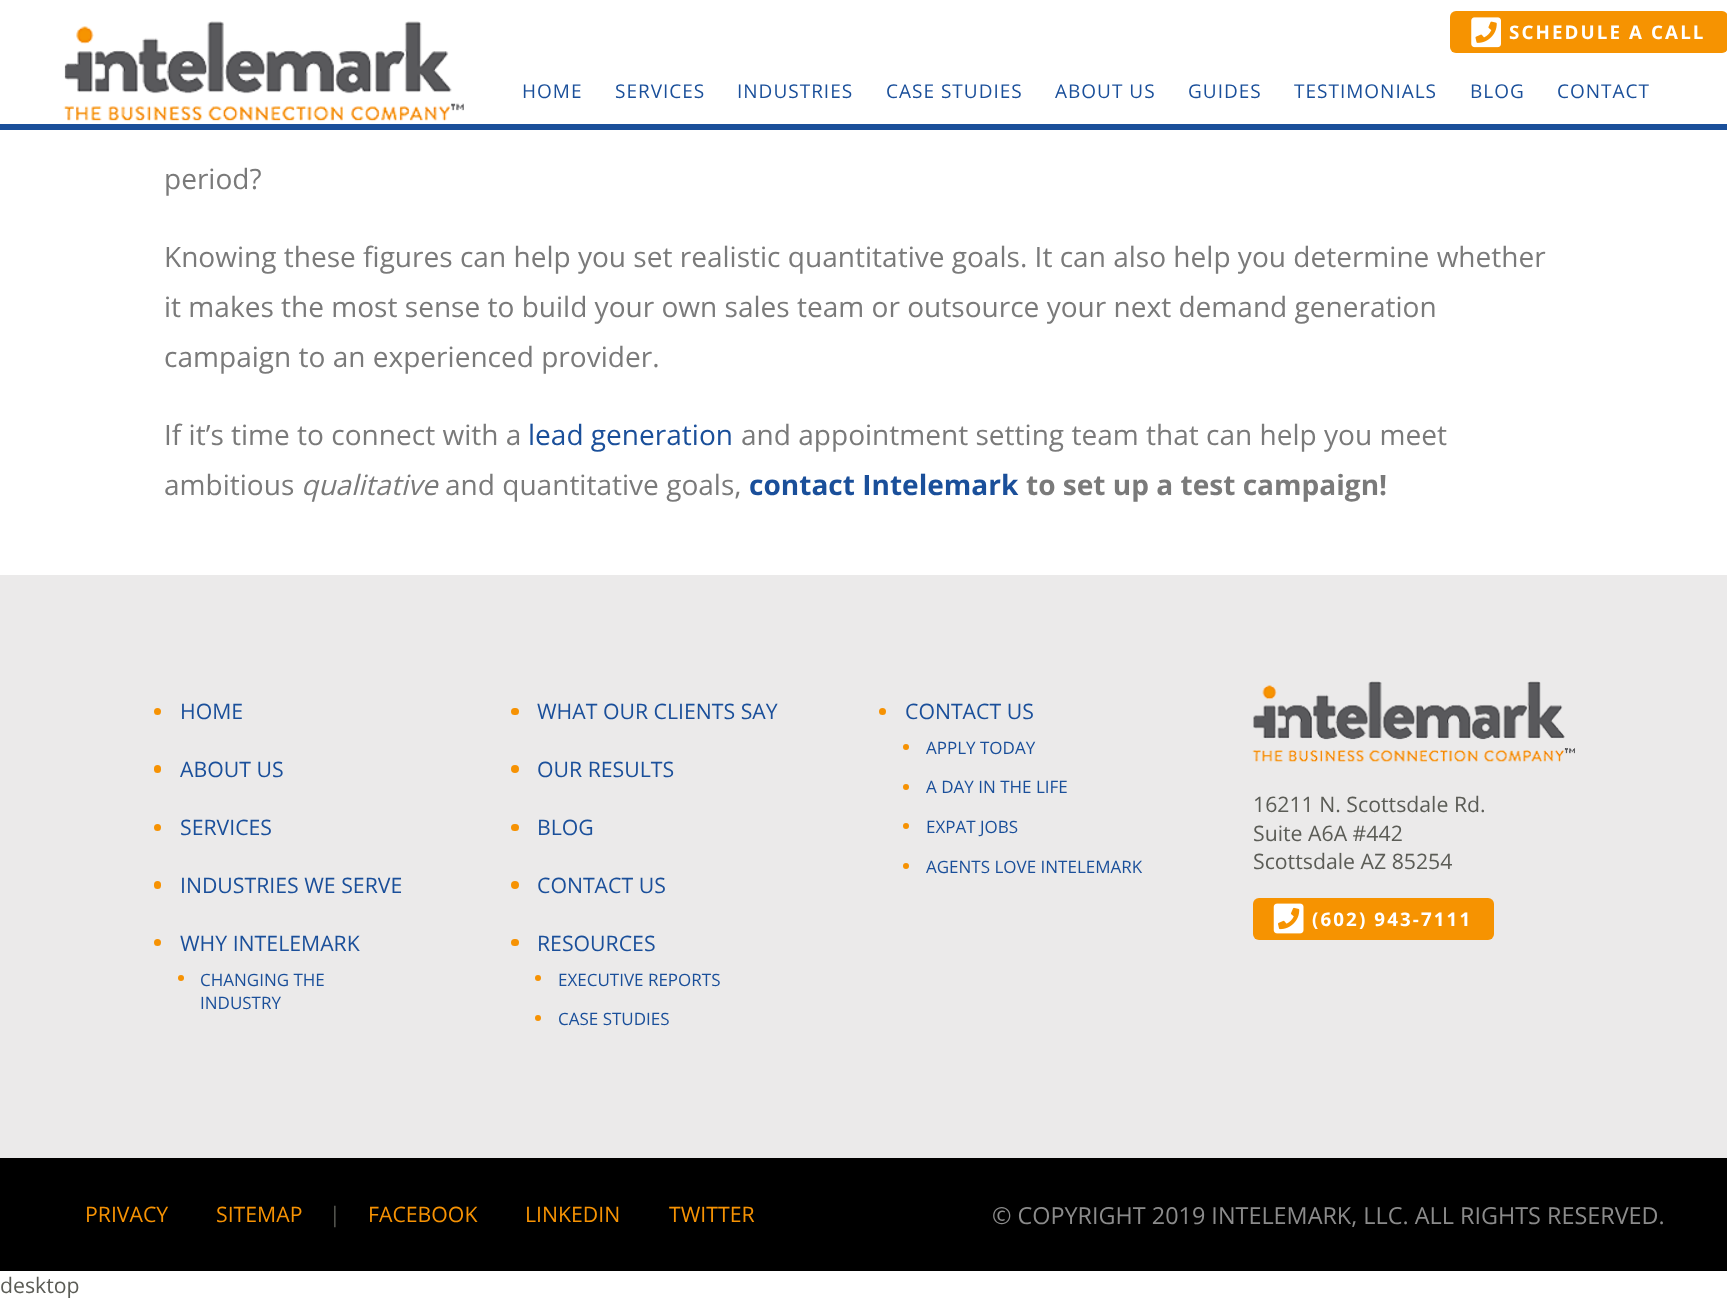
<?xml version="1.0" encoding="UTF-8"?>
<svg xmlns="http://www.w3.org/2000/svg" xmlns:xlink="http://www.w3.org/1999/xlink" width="1727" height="1300">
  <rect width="100%" height="100%" fill="#ffffff" />
  <rect y="124" width="1727" height="6" fill="#1a4f9a" />
  <image x="63" y="21" width="401" height="101" xlink:href="image1.png" />
  <rect x="1450" y="11" width="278" height="42" rx="6" fill="#f69301" />
  <image x="1471" y="17" width="30" height="31" xlink:href="image2.png" />
  <rect y="575" width="1727" height="583" fill="#ebeaea" />
  <circle cx="157.5" cy="711.5" r="3.5" fill="#f69203" />
  <rect x="154" y="765" width="7" height="8" rx="3.5" fill="#f69203" />
  <circle cx="157.5" cy="827.5" r="3.5" fill="#f69203" />
  <rect x="154" y="881" width="7" height="8" rx="3.5" fill="#f69203" />
  <circle cx="157.5" cy="942.5" r="3.5" fill="#f69203" />
  <circle cx="181" cy="978" r="3" fill="#f69203" />
  <rect x="511" y="708" width="8" height="7" rx="3.5" fill="#f69203" />
  <circle cx="515" cy="769" r="4" fill="#f69203" />
  <rect x="511" y="824" width="8" height="7" rx="3.5" fill="#f69203" />
  <circle cx="515" cy="885" r="4" fill="#f69203" />
  <rect x="511" y="939" width="8" height="7" rx="3.5" fill="#f69203" />
  <circle cx="538" cy="978" r="3" fill="#f69203" />
  <circle cx="538" cy="1018" r="3" fill="#f69203" />
  <circle cx="882.5" cy="711.5" r="3.5" fill="#f69203" />
  <circle cx="906" cy="747" r="3" fill="#f69203" />
  <circle cx="906" cy="787" r="3" fill="#f69203" />
  <circle cx="906" cy="826" r="3" fill="#f69203" />
  <circle cx="906" cy="866" r="3" fill="#f69203" />
  <image x="1252" y="681" width="323" height="82" xlink:href="image3.png" />
  <rect x="1253" y="898" width="241" height="42" rx="6" fill="#f69301" />
  <image x="1273" y="903" width="31" height="31" xlink:href="image4.png" />
  <rect y="1158" width="1727" height="113" fill="#000000" />
  <text x="1509" y="39" style="font-family: Open Sans; font-size: 18.75px; font-weight: bold; letter-spacing: 2.1px; fill: #ffffff">SCHEDULE A CALL</text>
  <text x="522" y="98" style="font-family: Open Sans; font-size: 19px; letter-spacing: 1px; fill: #1a4f9a">HOME</text>
  <text x="615" y="98" style="font-family: Open Sans; font-size: 19px; letter-spacing: 1px; fill: #1a4f9a">SERVICES</text>
  <text x="737" y="98" style="font-family: Open Sans; font-size: 19px; letter-spacing: 1px; fill: #1a4f9a">INDUSTRIES</text>
  <text x="886" y="98" style="font-family: Open Sans; font-size: 19px; letter-spacing: 1px; fill: #1a4f9a">CASE STUDIES</text>
  <text x="1055" y="98" style="font-family: Open Sans; font-size: 19px; letter-spacing: 1px; fill: #1a4f9a">ABOUT US</text>
  <text x="1188" y="98" style="font-family: Open Sans; font-size: 19px; letter-spacing: 1px; fill: #1a4f9a">GUIDES</text>
  <text x="1294" y="98" style="font-family: Open Sans; font-size: 19px; letter-spacing: 1px; fill: #1a4f9a">TESTIMONIALS</text>
  <text x="1470" y="98" style="font-family: Open Sans; font-size: 19px; letter-spacing: 1px; fill: #1a4f9a">BLOG</text>
  <text x="1557" y="98" style="font-family: Open Sans; font-size: 19px; letter-spacing: 1px; fill: #1a4f9a">CONTACT</text>
  <text x="164" y="189" style="font-family: Open Sans; font-size: 28.05px; fill: #7a7a7a">period?</text>
  <text x="164" y="267" style="font-family: Open Sans; font-size: 28.05px; fill: #7a7a7a">Knowing these figures can help you set realistic quantitative goals. It can also help you determine whether</text>
  <text x="164" y="317" style="font-family: Open Sans; font-size: 28.05px; fill: #7a7a7a">it makes the most sense to build your own sales team or outsource your next demand generation</text>
  <text x="164" y="367" style="font-family: Open Sans; font-size: 28.05px; fill: #7a7a7a">campaign to an experienced provider.</text>
  <text x="164" y="445" style="font-family: Open Sans; font-size: 28.05px; fill: #7a7a7a">If it’s time to connect with a</text>
  <text x="528" y="445" style="font-family: Open Sans; font-size: 28.05px; fill: #1a4f9a">lead generation</text>
  <text x="741" y="445" style="font-family: Open Sans; font-size: 28.05px; fill: #7a7a7a">and appointment setting team that can help you meet</text>
  <text x="164" y="495" style="font-family: Open Sans; font-size: 28.05px; fill: #7a7a7a">ambitious</text>
  <text x="301" y="495" style="font-family: Open Sans; font-size: 28.05px; font-style: italic; fill: #7a7a7a">qualitative</text>
  <text x="445" y="495" style="font-family: Open Sans; font-size: 28.05px; fill: #7a7a7a">and quantitative goals,</text>
  <text x="749" y="495" style="font-family: Open Sans; font-size: 28.05px; font-weight: bold; fill: #1a4f9a">contact Intelemark</text>
  <text x="1026" y="495" style="font-family: Open Sans; font-size: 28.05px; font-weight: bold; fill: #7a7a7a">to set up a test campaign!</text>
  <text x="180" y="719" style="font-family: Open Sans; font-size: 21.25px; fill: #1a4f9a">HOME</text>
  <text x="180" y="777" style="font-family: Open Sans; font-size: 21.25px; fill: #1a4f9a">ABOUT US</text>
  <text x="180" y="835" style="font-family: Open Sans; font-size: 21.25px; fill: #1a4f9a">SERVICES</text>
  <text x="180" y="893" style="font-family: Open Sans; font-size: 21.25px; fill: #1a4f9a">INDUSTRIES WE SERVE</text>
  <text x="180" y="951" style="font-family: Open Sans; font-size: 21.25px; fill: #1a4f9a">WHY INTELEMARK</text>
  <text x="200" y="986" style="font-family: Open Sans; font-size: 17px; fill: #1a4f9a">CHANGING THE</text>
  <text x="200" y="1009" style="font-family: Open Sans; font-size: 17px; fill: #1a4f9a">INDUSTRY</text>
  <text x="537" y="719" style="font-family: Open Sans; font-size: 21.25px; fill: #1a4f9a">WHAT OUR CLIENTS SAY</text>
  <text x="537" y="777" style="font-family: Open Sans; font-size: 21.25px; fill: #1a4f9a">OUR RESULTS</text>
  <text x="537" y="835" style="font-family: Open Sans; font-size: 21.25px; fill: #1a4f9a">BLOG</text>
  <text x="537" y="893" style="font-family: Open Sans; font-size: 21.25px; fill: #1a4f9a">CONTACT US</text>
  <text x="537" y="951" style="font-family: Open Sans; font-size: 21.25px; fill: #1a4f9a">RESOURCES</text>
  <text x="558" y="986" style="font-family: Open Sans; font-size: 17px; fill: #1a4f9a">EXECUTIVE REPORTS</text>
  <text x="558" y="1025" style="font-family: Open Sans; font-size: 17px; fill: #1a4f9a">CASE STUDIES</text>
  <text x="905" y="719" style="font-family: Open Sans; font-size: 21.25px; fill: #1a4f9a">CONTACT US</text>
  <text x="926" y="754" style="font-family: Open Sans; font-size: 17px; fill: #1a4f9a">APPLY TODAY</text>
  <text x="926" y="793" style="font-family: Open Sans; font-size: 17px; fill: #1a4f9a">A DAY IN THE LIFE</text>
  <text x="926" y="833" style="font-family: Open Sans; font-size: 17px; fill: #1a4f9a">EXPAT JOBS</text>
  <text x="926" y="873" style="font-family: Open Sans; font-size: 17px; fill: #1a4f9a">AGENTS LOVE INTELEMARK</text>
  <text x="1253" y="812" style="font-family: Open Sans; font-size: 21.25px; fill: #5b5c56">16211 N. Scottsdale Rd.</text>
  <text x="1253" y="841" style="font-family: Open Sans; font-size: 21.25px; fill: #5b5c56">Suite A6A #442</text>
  <text x="1253" y="869" style="font-family: Open Sans; font-size: 21.25px; fill: #5b5c56">Scottsdale AZ 85254</text>
  <text x="1312" y="926" style="font-family: Open Sans; font-size: 18.75px; font-weight: bold; letter-spacing: 2.1px; fill: #ffffff">(602) 943-7111</text>
  <text x="85" y="1222" style="font-family: Open Sans; font-size: 21.25px; fill: #f69203">PRIVACY</text>
  <text x="216" y="1222" style="font-family: Open Sans; font-size: 21.25px; fill: #f69203">SITEMAP</text>
  <text x="329" y="1222" style="font-family: Open Sans; font-size: 21.25px; fill: #5b5c56">|</text>
  <text x="368" y="1222" style="font-family: Open Sans; font-size: 21.25px; fill: #f69203">FACEBOOK</text>
  <text x="525" y="1222" style="font-family: Open Sans; font-size: 21.25px; fill: #f69203">LINKEDIN</text>
  <text x="669" y="1222" style="font-family: Open Sans; font-size: 21.25px; fill: #f69203">TWITTER</text>
  <text x="992" y="1224" style="font-family: Open Sans; font-size: 23.4px; fill: #8b8b8b">© COPYRIGHT 2019 INTELEMARK, LLC. ALL RIGHTS RESERVED.</text>
  <text x="0" y="1293" style="font-family: Open Sans; font-size: 21.25px; fill: #5b5c56">desktop</text>
</svg>
